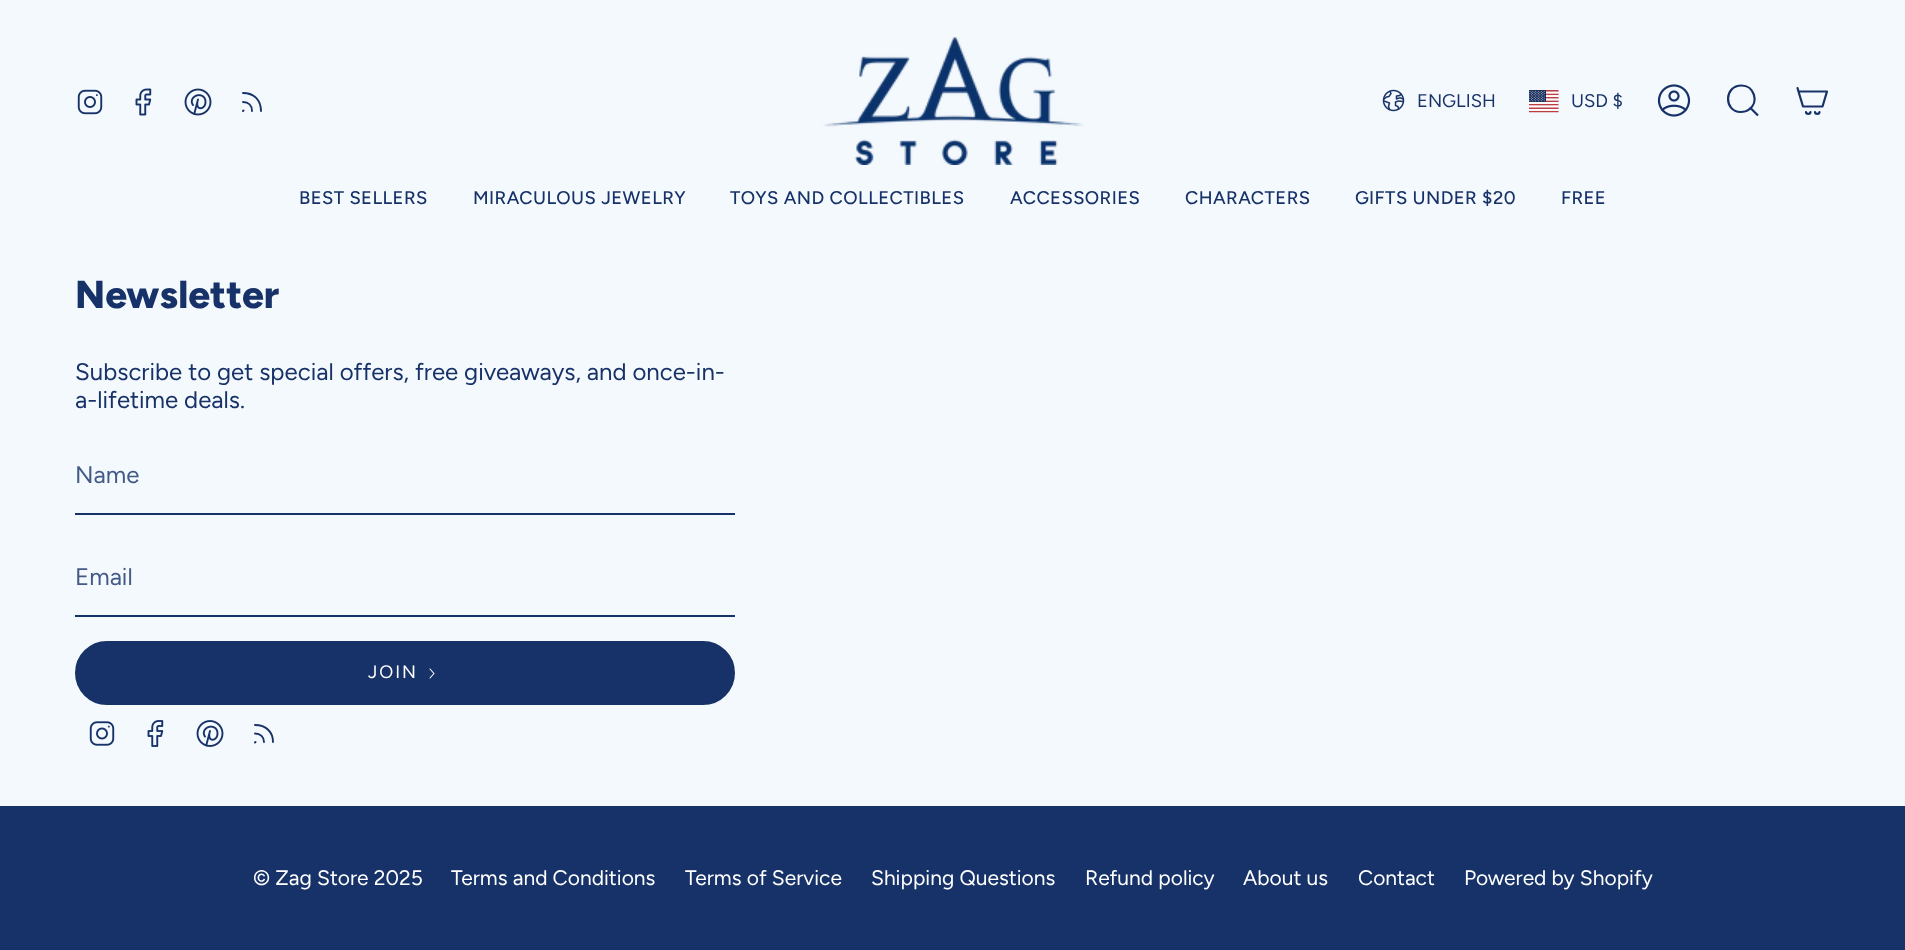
<?xml version="1.0" encoding="UTF-8"?>
<svg xmlns="http://www.w3.org/2000/svg" xmlns:xlink="http://www.w3.org/1999/xlink" width="1905" height="950">
  <rect width="100%" height="100%" fill="#f4f9fd" />
  <image x="77" y="89" width="26" height="26" xlink:href="image1.png" />
  <image x="135" y="88" width="17" height="28" xlink:href="image2.png" />
  <image x="184" y="88" width="28" height="28" xlink:href="image3.png" />
  <path d="M 252 111 c 0 -5.5 -3.5 -9 -9 -9 m 18 9 c 0 -11 -7 -18 -18 -18 m 0 18 l 0.5 -0.5" fill="none" stroke="#173268" stroke-width="1.9" stroke-linecap="round" stroke-linejoin="round" />
  <image x="823" y="37" width="261" height="128" xlink:href="image4.png" />
  <image x="1382" y="89" width="23" height="23" xlink:href="image5.png" />
  <image x="1529" y="90" width="30" height="23" xlink:href="image6.png" />
  <image x="1657" y="84" width="34" height="33" xlink:href="image7.png" />
  <path d="M 1741.5 85.5 c 12.5 0 18 16.5 7.5 24 c -2.5 2 -5.5 2.5 -8.5 2.5 c -17 -0.5 -16.5 -26.5 1 -26.5 z m 9 22.5 l 7.5 7.5" fill="none" stroke="#173268" stroke-width="2.2" />
  <path d="M 1798.5 91.5 h 28.5 l -4.5 15 h -19.5 z m 0 0 l -1 -3.5 m 13 24 c 0 2.5 -4.5 2.5 -4.5 0 m 13.5 0 c 0 2.5 -4.5 2.5 -4.5 0" fill="none" stroke="#173268" stroke-width="2.2" stroke-linecap="round" stroke-linejoin="round" />
  <rect x="75" y="513" width="660" height="2" fill="#173268" />
  <rect x="75" y="615" width="660" height="2" fill="#173268" />
  <rect x="76" y="642" width="658" height="62" rx="31" fill="#173268" stroke="#173268" stroke-width="2" />
  <path d="M 430 669 l 4 4.5 l -4 4.5" fill="none" stroke="#ffffff" stroke-width="1.1" stroke-linecap="round" stroke-linejoin="round" />
  <image x="89" y="721" width="26" height="25" xlink:href="image8.png" />
  <image x="147" y="720" width="17" height="27" xlink:href="image9.png" />
  <image x="196" y="720" width="28" height="27" xlink:href="image10.png" />
  <path d="M 264 742 c 0 -5 -3.5 -8.5 -9 -8.5 m 18 8.5 c 0 -10 -7 -17 -18 -17 m 0 17.5 l 0.5 -0.5" fill="none" stroke="#173268" stroke-width="1.9" stroke-linecap="round" stroke-linejoin="round" />
  <rect y="806" width="1905" height="144" fill="#173268" />
  <text x="1417" y="107" style="font-family: Figtree; font-size: 18.4px; fill: #173268">ENGLISH</text>
  <text x="1571" y="107" style="font-family: Figtree; font-size: 18.4px; fill: #173268">USD $</text>
  <text x="299" y="204" style="font-family: Figtree; font-size: 18.4px; font-weight: 500; letter-spacing: 0.45px; fill: #173268">BEST SELLERS</text>
  <text x="473" y="204" style="font-family: Figtree; font-size: 18.4px; font-weight: 500; letter-spacing: 0.45px; fill: #173268">MIRACULOUS JEWELRY</text>
  <text x="730" y="204" style="font-family: Figtree; font-size: 18.4px; font-weight: 500; letter-spacing: 0.45px; fill: #173268">TOYS AND COLLECTIBLES</text>
  <text x="1010" y="204" style="font-family: Figtree; font-size: 18.4px; font-weight: 500; letter-spacing: 0.45px; fill: #173268">ACCESSORIES</text>
  <text x="1185" y="204" style="font-family: Figtree; font-size: 18.4px; font-weight: 500; letter-spacing: 0.45px; fill: #173268">CHARACTERS</text>
  <text x="1355" y="204" style="font-family: Figtree; font-size: 18.4px; font-weight: 500; letter-spacing: 0.45px; fill: #173268">GIFTS UNDER $20</text>
  <text x="1561" y="204" style="font-family: Figtree; font-size: 18.4px; font-weight: 500; letter-spacing: 0.45px; fill: #173268">FREE</text>
  <text x="75" y="308" style="font-family: Figtree; font-size: 39px; font-weight: 800; fill: #173268">Newsletter</text>
  <text x="75" y="380" style="font-family: Figtree; font-size: 24px; fill: #173268">Subscribe to get special offers, free giveaways, and once-in-</text>
  <text x="75" y="408" style="font-family: Figtree; font-size: 24px; fill: #173268">a-lifetime deals.</text>
  <text x="75" y="483" style="font-family: Figtree; font-size: 24px; fill: #435a86">Name</text>
  <text x="75" y="585" style="font-family: Figtree; font-size: 24px; fill: #435a86">Email</text>
  <text x="368" y="678" style="font-family: Figtree; font-size: 18px; letter-spacing: 2px; fill: #ffffff">JOIN</text>
  <text x="253" y="885" style="font-family: Figtree; font-size: 21px; fill: #ffffff">© Zag Store 2025</text>
  <text x="451" y="885" style="font-family: Figtree; font-size: 21px; fill: #ffffff">Terms and Conditions</text>
  <text x="685" y="885" style="font-family: Figtree; font-size: 21px; fill: #ffffff">Terms of Service</text>
  <text x="871" y="885" style="font-family: Figtree; font-size: 21px; fill: #ffffff">Shipping Questions</text>
  <text x="1085" y="885" style="font-family: Figtree; font-size: 21px; fill: #ffffff">Refund policy</text>
  <text x="1243" y="885" style="font-family: Figtree; font-size: 21px; fill: #ffffff">About us</text>
  <text x="1358" y="885" style="font-family: Figtree; font-size: 21px; fill: #ffffff">Contact</text>
  <text x="1464" y="885" style="font-family: Figtree; font-size: 21px; fill: #ffffff">Powered by Shopify</text>
</svg>
